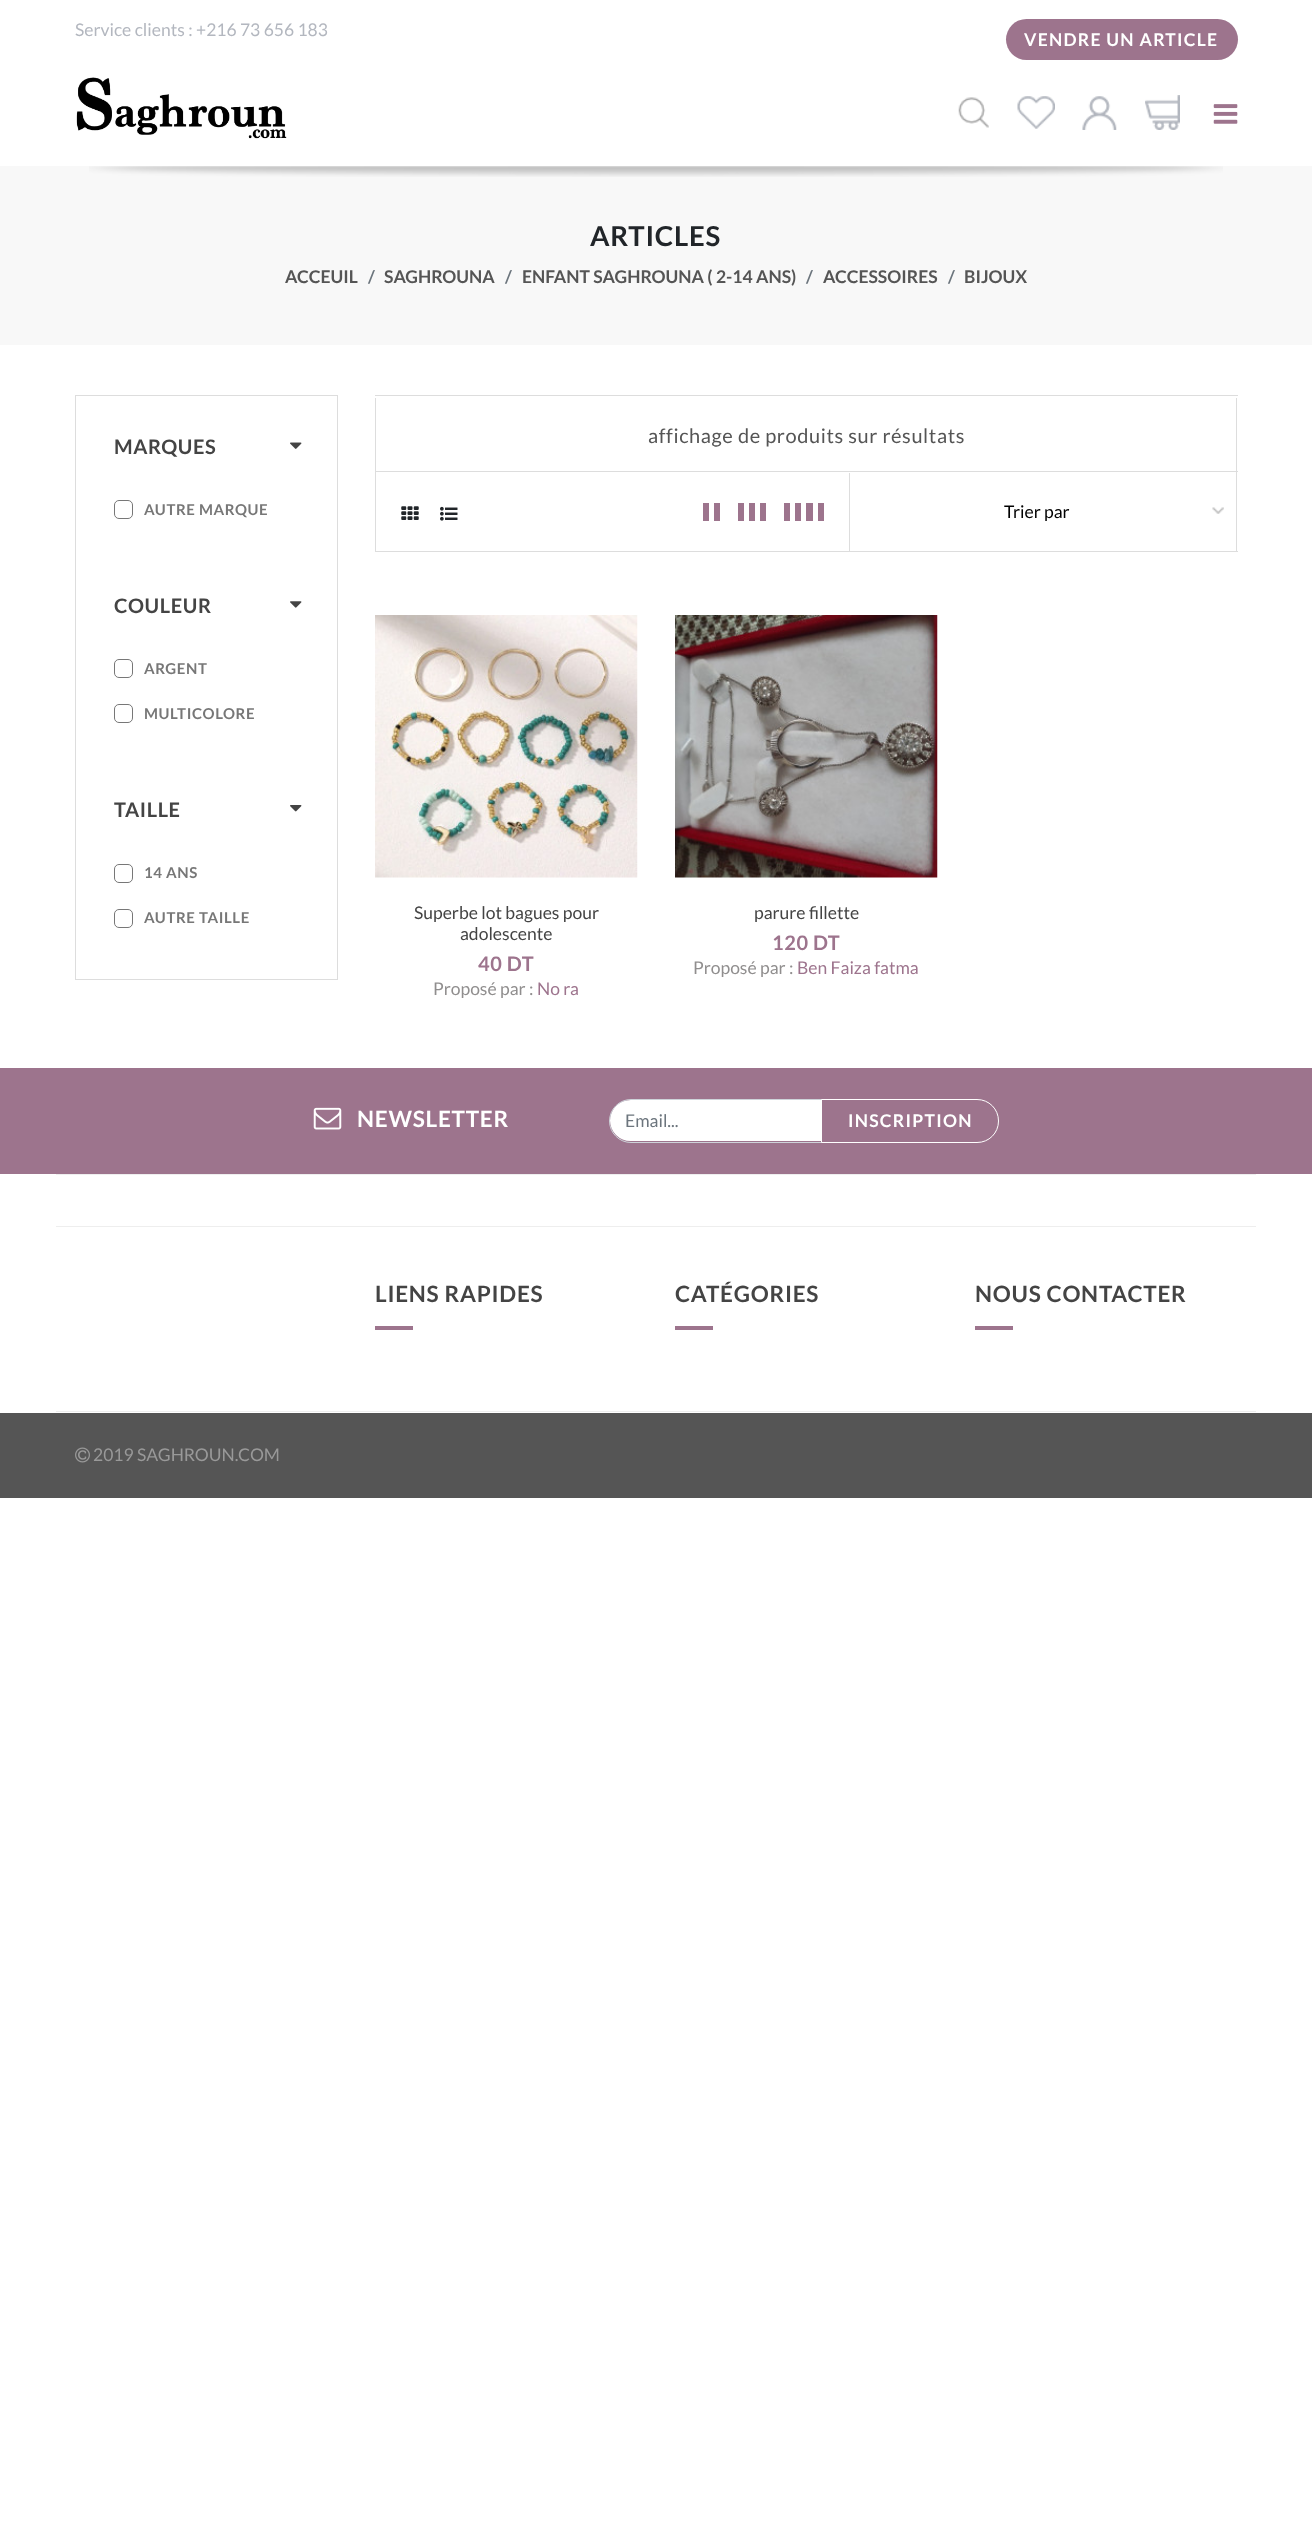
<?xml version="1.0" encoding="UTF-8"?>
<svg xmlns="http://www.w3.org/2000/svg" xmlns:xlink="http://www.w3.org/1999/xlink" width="1312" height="2539">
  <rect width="100%" height="100%" fill="#ffffff" />
  <rect x="1006" y="19" width="232" height="41" rx="20.5" fill="#9d748d" />
  <image x="76" y="77" width="211" height="62" xlink:href="image1.png" />
  <image x="958" y="97" width="31" height="31" xlink:href="image2.png" />
  <image x="1017" y="96" width="38" height="33" xlink:href="image3.png" />
  <image x="1082" y="96" width="35" height="34" xlink:href="image4.png" />
  <image x="1145" y="95" width="35" height="35" xlink:href="image5.png" />
  <image x="1213" y="104" width="25" height="20" xlink:href="image6.png" />
  <rect y="166" width="1312" height="179" fill="#f8f8f8" />
  <image x="89" y="166" width="1134" height="11" xlink:href="image7.png" />
  <rect x="75.5" y="395.5" width="262" height="584" fill="none" stroke="#dddddd" />
  <image x="290" y="442" width="12" height="7" xlink:href="image8.png" />
  <rect x="114.5" y="500.5" width="18" height="18" rx="4.5" fill="none" stroke="#777777" />
  <image x="290" y="601" width="12" height="7" xlink:href="image9.png" />
  <rect x="114.5" y="659.5" width="18" height="18" rx="4.5" fill="none" stroke="#777777" />
  <rect x="114.5" y="704.5" width="18" height="18" rx="4.5" fill="none" stroke="#777777" />
  <image x="290" y="805" width="12" height="7" xlink:href="image10.png" />
  <rect x="114.5" y="864.5" width="18" height="18" rx="4.5" fill="none" stroke="#777777" />
  <rect x="114.5" y="909.5" width="18" height="18" rx="4.5" fill="none" stroke="#777777" />
  <rect x="375" y="395" width="863" height="1" fill="#dddddd" />
  <rect x="375" y="551" width="863" height="1" fill="#dddddd" />
  <rect x="1236" y="398" width="1" height="153" fill="#dddddd" />
  <rect x="375" y="471" width="863" height="1" fill="#dddddd" />
  <rect x="375" y="398" width="1" height="153" fill="#dddddd" />
  <image x="401" y="506" width="18" height="14" xlink:href="image11.png" />
  <image x="440" y="506" width="18" height="15" xlink:href="image12.png" />
  <rect x="849" y="473" width="1" height="78" fill="#dddddd" />
  <rect x="703" y="503" width="6" height="18" fill="#9d748d" />
  <rect x="714" y="503" width="6" height="18" fill="#9d748d" />
  <rect x="738" y="503" width="6" height="18" fill="#9d748d" />
  <rect x="749" y="503" width="6" height="18" fill="#9d748d" />
  <rect x="760" y="503" width="6" height="18" fill="#9d748d" />
  <rect x="784" y="503" width="6" height="18" fill="#9d748d" />
  <rect x="795" y="503" width="6" height="18" fill="#9d748d" />
  <rect x="806" y="503" width="7" height="18" fill="#9d748d" />
  <rect x="818" y="503" width="6" height="18" fill="#9d748d" />
  <image x="1212" y="507" width="12" height="7" xlink:href="image13.png" />
  <image x="375" y="615" width="263" height="263" xlink:href="image14.png" />
  <image x="675" y="615" width="263" height="263" xlink:href="image15.png" />
  <rect y="1068" width="1312" height="106" fill="#9d748d" />
  <image x="313" y="1107" width="29" height="23" xlink:href="image16.png" />
  <rect x="610" y="1100" width="248" height="41" rx="20.5" fill="#ffffff" />
  <rect x="609.5" y="1099.5" width="249" height="43" rx="21.5" fill="none" stroke="#ced4da" />
  <path d="M 821.5 1099.5 h 155.5 c 12 0 21.5 9.5 21.5 21.5 c 0 12 -9.5 21.5 -21.5 21.5 h -155.5 z" fill="#9d748d" stroke="#ffffff" />
  <rect x="56" y="1174" width="1200" height="1" fill="#eeeeee" />
  <rect x="56" y="1411" width="1200" height="1" fill="#eeeeee" />
  <rect x="56" y="1226" width="1200" height="1" fill="#eeeeee" />
  <rect x="375" y="1326" width="38" height="4" fill="#9d748d" />
  <rect x="675" y="1326" width="38" height="4" fill="#9d748d" />
  <rect x="975" y="1326" width="38" height="4" fill="#9d748d" />
  <rect y="1413" width="1312" height="85" fill="#555555" />
  <image x="75" y="1447" width="15" height="16" xlink:href="image17.png" />
  <text x="75" y="36" style="font-family: Lato; font-size: 17.5px; fill: #b3b7bf">Service clients : +216 73 656 183</text>
  <text x="1024" y="46" style="font-family: Lato; font-size: 17.5px; font-weight: bold; letter-spacing: 1.25px; fill: #ffffff">VENDRE UN ARTICLE</text>
  <text x="590" y="246" style="font-family: Lato; font-size: 27.5px; font-weight: bold; letter-spacing: 0.75px; fill: #212529">ARTICLES</text>
  <text x="285" y="283" style="font-family: Lato; font-size: 17.5px; font-weight: bold; fill: #555555">ACCEUIL</text>
  <text x="368" y="283" style="font-family: Lato; font-size: 17.5px; font-weight: bold; fill: #6c757d">/</text>
  <text x="384" y="283" style="font-family: Lato; font-size: 17.5px; font-weight: bold; fill: #555555">SAGHROUNA</text>
  <text x="505" y="283" style="font-family: Lato; font-size: 17.5px; font-weight: bold; fill: #6c757d">/</text>
  <text x="522" y="283" style="font-family: Lato; font-size: 17.5px; font-weight: bold; fill: #555555">ENFANT SAGHROUNA ( 2-14 ANS)</text>
  <text x="806" y="283" style="font-family: Lato; font-size: 17.5px; font-weight: bold; fill: #6c757d">/</text>
  <text x="823" y="283" style="font-family: Lato; font-size: 17.5px; font-weight: bold; fill: #555555">ACCESSOIRES</text>
  <text x="948" y="283" style="font-family: Lato; font-size: 17.5px; font-weight: bold; fill: #6c757d">/</text>
  <text x="964" y="283" style="font-family: Lato; font-size: 17.5px; font-weight: bold; fill: #555555">BIJOUX</text>
  <text x="114" y="454" style="font-family: Lato; font-size: 20px; font-weight: bold; letter-spacing: 0.6px; fill: #444444">MARQUES</text>
  <text x="144" y="515" style="font-family: Lato; font-size: 15px; font-weight: bold; letter-spacing: 0.6px; fill: #777777">AUTRE MARQUE</text>
  <text x="114" y="613" style="font-family: Lato; font-size: 20px; font-weight: bold; letter-spacing: 0.6px; fill: #444444">COULEUR</text>
  <text x="144" y="674" style="font-family: Lato; font-size: 15px; font-weight: bold; letter-spacing: 0.6px; fill: #777777">ARGENT</text>
  <text x="144" y="719" style="font-family: Lato; font-size: 15px; font-weight: bold; letter-spacing: 0.6px; fill: #777777">MULTICOLORE</text>
  <text x="114" y="817" style="font-family: Lato; font-size: 20px; font-weight: bold; letter-spacing: 0.6px; fill: #444444">TAILLE</text>
  <text x="144" y="878" style="font-family: Lato; font-size: 15px; font-weight: bold; letter-spacing: 0.6px; fill: #777777">14 ANS</text>
  <text x="144" y="923" style="font-family: Lato; font-size: 15px; font-weight: bold; letter-spacing: 0.6px; fill: #777777">AUTRE TAILLE</text>
  <text x="648" y="443" style="font-family: Lato; font-size: 20px; letter-spacing: 0.6px; fill: #555555">affichage de produits sur résultats</text>
  <text x="1004" y="518" style="font-family: Lato; font-size: 17.5px; fill: #000000">Trier par</text>
  <text x="414" y="919" style="font-family: Lato; font-size: 17.5px; fill: #444444">Superbe lot bagues pour</text>
  <text x="460" y="940" style="font-family: Lato; font-size: 17.5px; fill: #444444">adolescente</text>
  <text x="478" y="971" style="font-family: Lato; font-size: 20px; font-weight: bold; letter-spacing: 0.6px; fill: #9d748d">40 DT</text>
  <text x="433" y="995" style="font-family: Lato; font-size: 17.5px; fill: #908e8e">Proposé par :</text>
  <text x="537" y="995" style="font-family: Lato; font-size: 17.5px; fill: #9d748d">No ra</text>
  <text x="754" y="919" style="font-family: Lato; font-size: 17.5px; fill: #444444">parure fillette</text>
  <text x="772" y="950" style="font-family: Lato; font-size: 20px; font-weight: bold; letter-spacing: 0.6px; fill: #9d748d">120 DT</text>
  <text x="693" y="974" style="font-family: Lato; font-size: 17.5px; fill: #908e8e">Proposé par :</text>
  <text x="797" y="974" style="font-family: Lato; font-size: 17.5px; fill: #9d748d">Ben Faiza fatma</text>
  <text x="357" y="1127" style="font-family: Lato; font-size: 22.5px; font-weight: bold; letter-spacing: 0.75px; fill: #ffffff">NEWSLETTER</text>
  <text x="625" y="1127" style="font-family: Lato; font-size: 17.5px; fill: #6c757d">Email...</text>
  <text x="848" y="1127" style="font-family: Lato; font-size: 17.5px; font-weight: bold; letter-spacing: 1.25px; fill: #ffffff">INSCRIPTION</text>
  <text x="375" y="1302" style="font-family: Lato; font-size: 22.5px; font-weight: bold; letter-spacing: 0.75px; fill: #444444">LIENS RAPIDES</text>
  <text x="675" y="1302" style="font-family: Lato; font-size: 22.5px; font-weight: bold; letter-spacing: 0.75px; fill: #444444">CATÉGORIES</text>
  <text x="975" y="1302" style="font-family: Lato; font-size: 22.5px; font-weight: bold; letter-spacing: 0.75px; fill: #444444">NOUS CONTACTER</text>
  <text x="93" y="1461" style="font-family: Lato; font-size: 17.5px; fill: #999999">2019 SAGHROUN.COM</text>
</svg>
